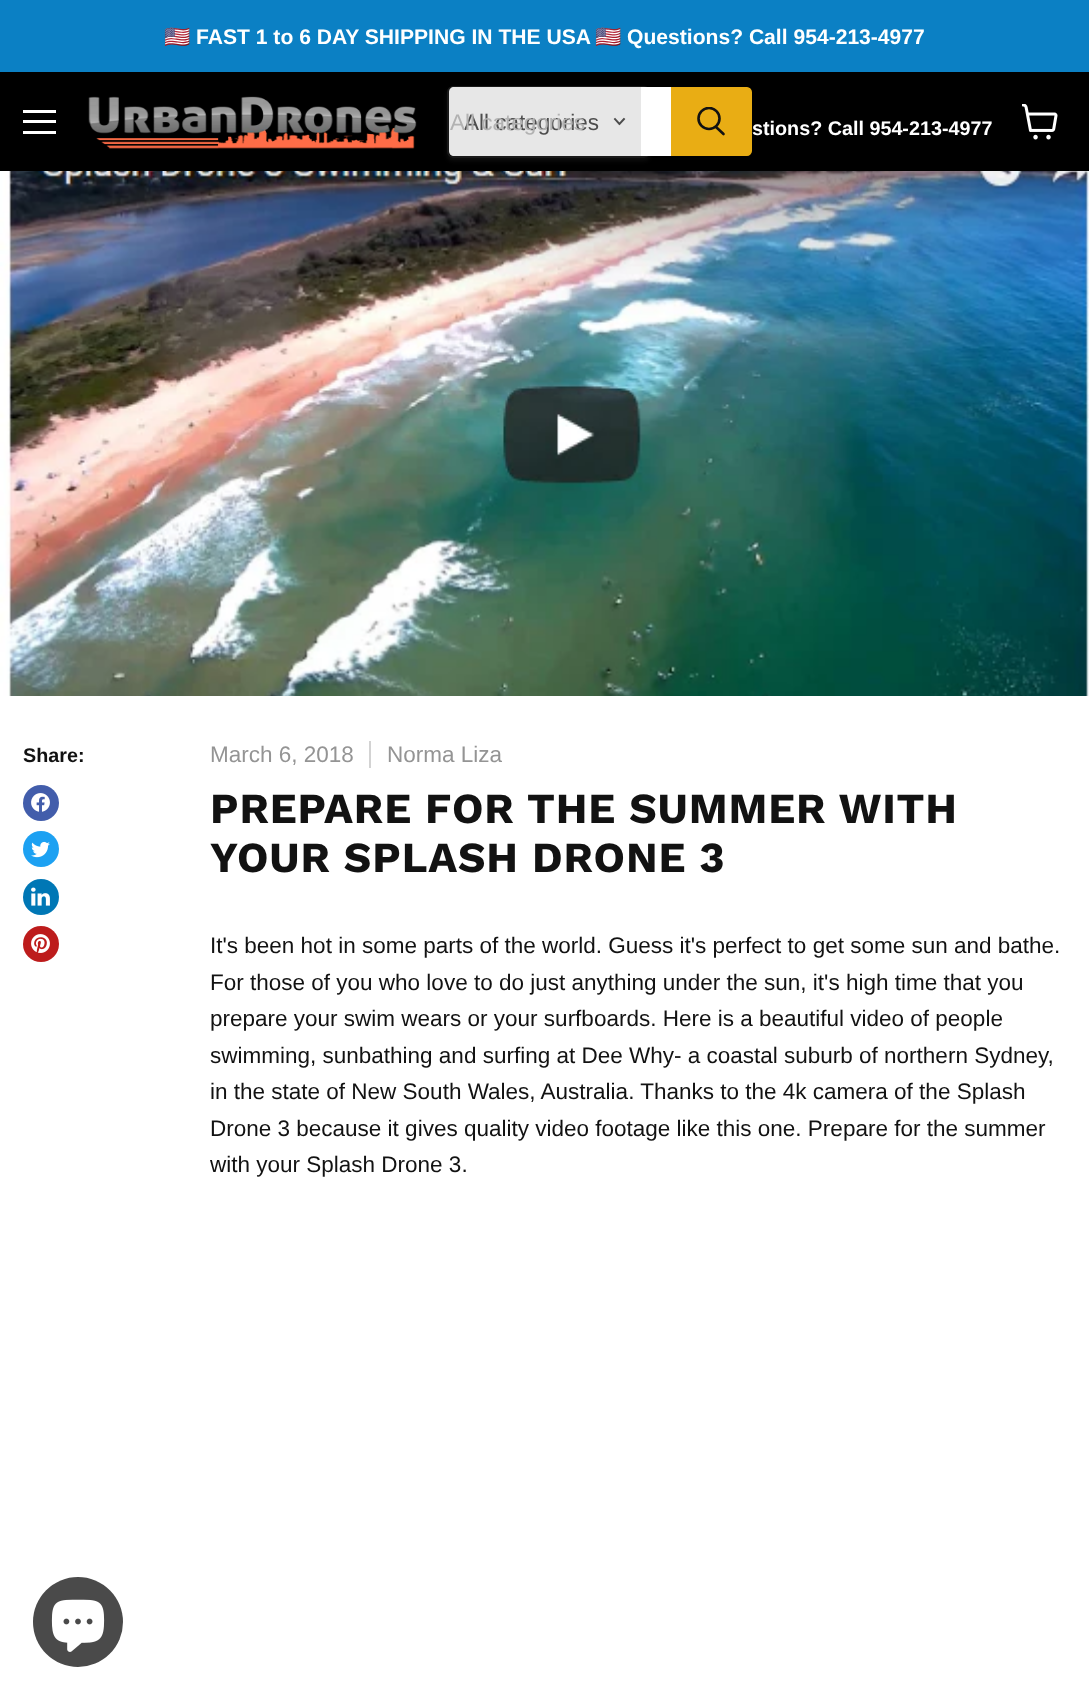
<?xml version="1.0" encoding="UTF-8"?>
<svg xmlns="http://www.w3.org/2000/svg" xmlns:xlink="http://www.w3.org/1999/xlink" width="1089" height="1697">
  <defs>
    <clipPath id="clip1"><path d="M 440 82 h 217 v 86 h -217 z m 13 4 h 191 c 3.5 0 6 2.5 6 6 v 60 c 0 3.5 -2.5 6 -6 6 h -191 c -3.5 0 -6 -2.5 -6 -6 v -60 c 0 -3.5 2.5 -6 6 -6 z" clip-rule="evenodd" /></clipPath>
    <clipPath id="clip2"><rect x="696" y="107" width="30" height="31" /></clipPath>
  </defs>
  <rect width="100%" height="100%" fill="#ffffff" />
  <rect width="1089" height="72" fill="#0b80c4" />
  <rect y="72" width="1089" height="99" fill="#000000" />
  <rect x="23" y="110" width="33" height="3" fill="#ffffff" />
  <rect x="23" y="120" width="33" height="3" fill="#ffffff" />
  <rect x="23" y="131" width="33" height="3" fill="#ffffff" />
  <image x="88" y="96" width="329" height="53" xlink:href="image1.png" />
  <g clip-path="url(#clip1)">
    <rect x="447" y="89" width="203" height="72" rx="6" fill="#808080" fill-opacity="0.11" filter="blur(2px)" />
  </g>
  <rect x="448" y="87" width="201" height="70" rx="5" fill="none" stroke="#808080" stroke-opacity="0.2" stroke-width="2" />
  <path d="M 454 87 h 187 v 69 h -187 c -3 0 -5 -2 -5 -5 v -59 c 0 -3 2 -5 5 -5 z" fill="#e7e7e7" />
  <path d="M 619.5 124 l 4.5 -5 m -4.5 5 l -4.5 -5" fill="none" stroke="#4d4d4d" stroke-width="1.9" stroke-linecap="square" />
  <rect x="641" y="87" width="30" height="69" fill="#ffffff" />
  <path d="M 672 88 h 75 c 2 0 4 2 4 4 v 59 c 0 2 -2 4 -4 4 h -75 z" fill="#e9ad14" stroke="#e9ad14" stroke-width="2" />
  <path d="M 723.5 134 l -7.5 -7" fill="none" stroke="#121212" stroke-width="2.6" stroke-linecap="round" />
  <g clip-path="url(#clip2)">
    <circle cx="709" cy="118.5" r="10.5" fill="none" stroke="#121212" stroke-width="2.6" />
  </g>
  <image x="1022" y="104" width="36" height="36" xlink:href="image2.png" />
  <image x="0" y="171" width="1089" height="525" xlink:href="image3.png" />
  <circle cx="41" cy="803" r="18" fill="#425dab" />
  <image x="31" y="793" width="19" height="19" xlink:href="image4.png" />
  <circle cx="41" cy="849" r="18" fill="#1da1f2" />
  <image x="31" y="841" width="19" height="17" xlink:href="image5.png" />
  <circle cx="41" cy="897" r="18" fill="#0077b5" />
  <image x="31" y="887" width="19" height="19" xlink:href="image6.png" />
  <circle cx="41" cy="944" r="18" fill="#bd1c1c" />
  <image x="31" y="934" width="19" height="19" xlink:href="image7.png" />
  <rect x="369" y="741" width="2" height="27" fill="#d3d3d3" />
  <circle cx="78" cy="1622" r="45" fill="#4a4a4a" />
  <image x="51" y="1599" width="54" height="53" xlink:href="image8.png" />
  <text x="164" y="44" style="font-family: Noto Color Emoji; font-size: 21.1px; font-weight: bold; fill: #ffffff">🇺🇸</text>
  <text x="196" y="44" style="font-family: Liberation Sans; font-size: 21.1px; font-weight: bold; fill: #ffffff">FAST 1 to 6 DAY SHIPPING IN THE USA</text>
  <text x="595" y="44" style="font-family: Noto Color Emoji; font-size: 21.1px; font-weight: bold; fill: #ffffff">🇺🇸</text>
  <text x="627" y="44" style="font-family: Liberation Sans; font-size: 21.1px; font-weight: bold; fill: #ffffff">Questions? Call 954-213-4977</text>
  <text x="464" y="130" style="font-family: Liberation Sans; font-size: 22.5px; fill: #4d4d4d">All categories</text>
  <text x="450" y="130" style="font-family: Liberation Sans; font-size: 22.5px; fill: #b2b2b2">All categories</text>
  <text x="752" y="135" style="font-family: Liberation Sans; font-size: 19.75px; font-weight: bold; fill: #ffffff">stions? Call 954-213-4977</text>
  <text x="23" y="762" style="font-family: Liberation Sans; font-size: 19.75px; font-weight: bold; fill: #121212">Share:</text>
  <text x="210" y="762" style="font-family: Liberation Sans; font-size: 22.5px; fill: #949494">March 6, 2018</text>
  <text x="387" y="762" style="font-family: Liberation Sans; font-size: 22.5px; fill: #949494">Norma Liza</text>
  <text x="210" y="823" style="font-family: Work Sans; font-size: 42.75px; font-weight: bold; letter-spacing: 0.85px; fill: #121212">PREPARE FOR THE SUMMER WITH</text>
  <text x="210" y="872" style="font-family: Work Sans; font-size: 42.75px; font-weight: bold; letter-spacing: 0.85px; fill: #121212">YOUR SPLASH DRONE 3</text>
  <text x="210" y="953" style="font-family: Liberation Sans; font-size: 22.5px; fill: #121212">It's been hot in some parts of the world. Guess it's perfect to get some sun and bathe.</text>
  <text x="210" y="990" style="font-family: Liberation Sans; font-size: 22.5px; fill: #121212">For those of you who love to do just anything under the sun, it's high time that you</text>
  <text x="210" y="1026" style="font-family: Liberation Sans; font-size: 22.5px; fill: #121212">prepare your swim wears or your surfboards. Here is a beautiful video of people</text>
  <text x="210" y="1063" style="font-family: Liberation Sans; font-size: 22.5px; fill: #121212">swimming, sunbathing and surfing at Dee Why- a coastal suburb of northern Sydney,</text>
  <text x="210" y="1099" style="font-family: Liberation Sans; font-size: 22.5px; fill: #121212">in the state of New South Wales, Australia. Thanks to the 4k camera of the Splash</text>
  <text x="210" y="1136" style="font-family: Liberation Sans; font-size: 22.5px; fill: #121212">Drone 3 because it gives quality video footage like this one. Prepare for the summer</text>
  <text x="210" y="1172" style="font-family: Liberation Sans; font-size: 22.5px; fill: #121212">with your Splash Drone 3.</text>
</svg>
